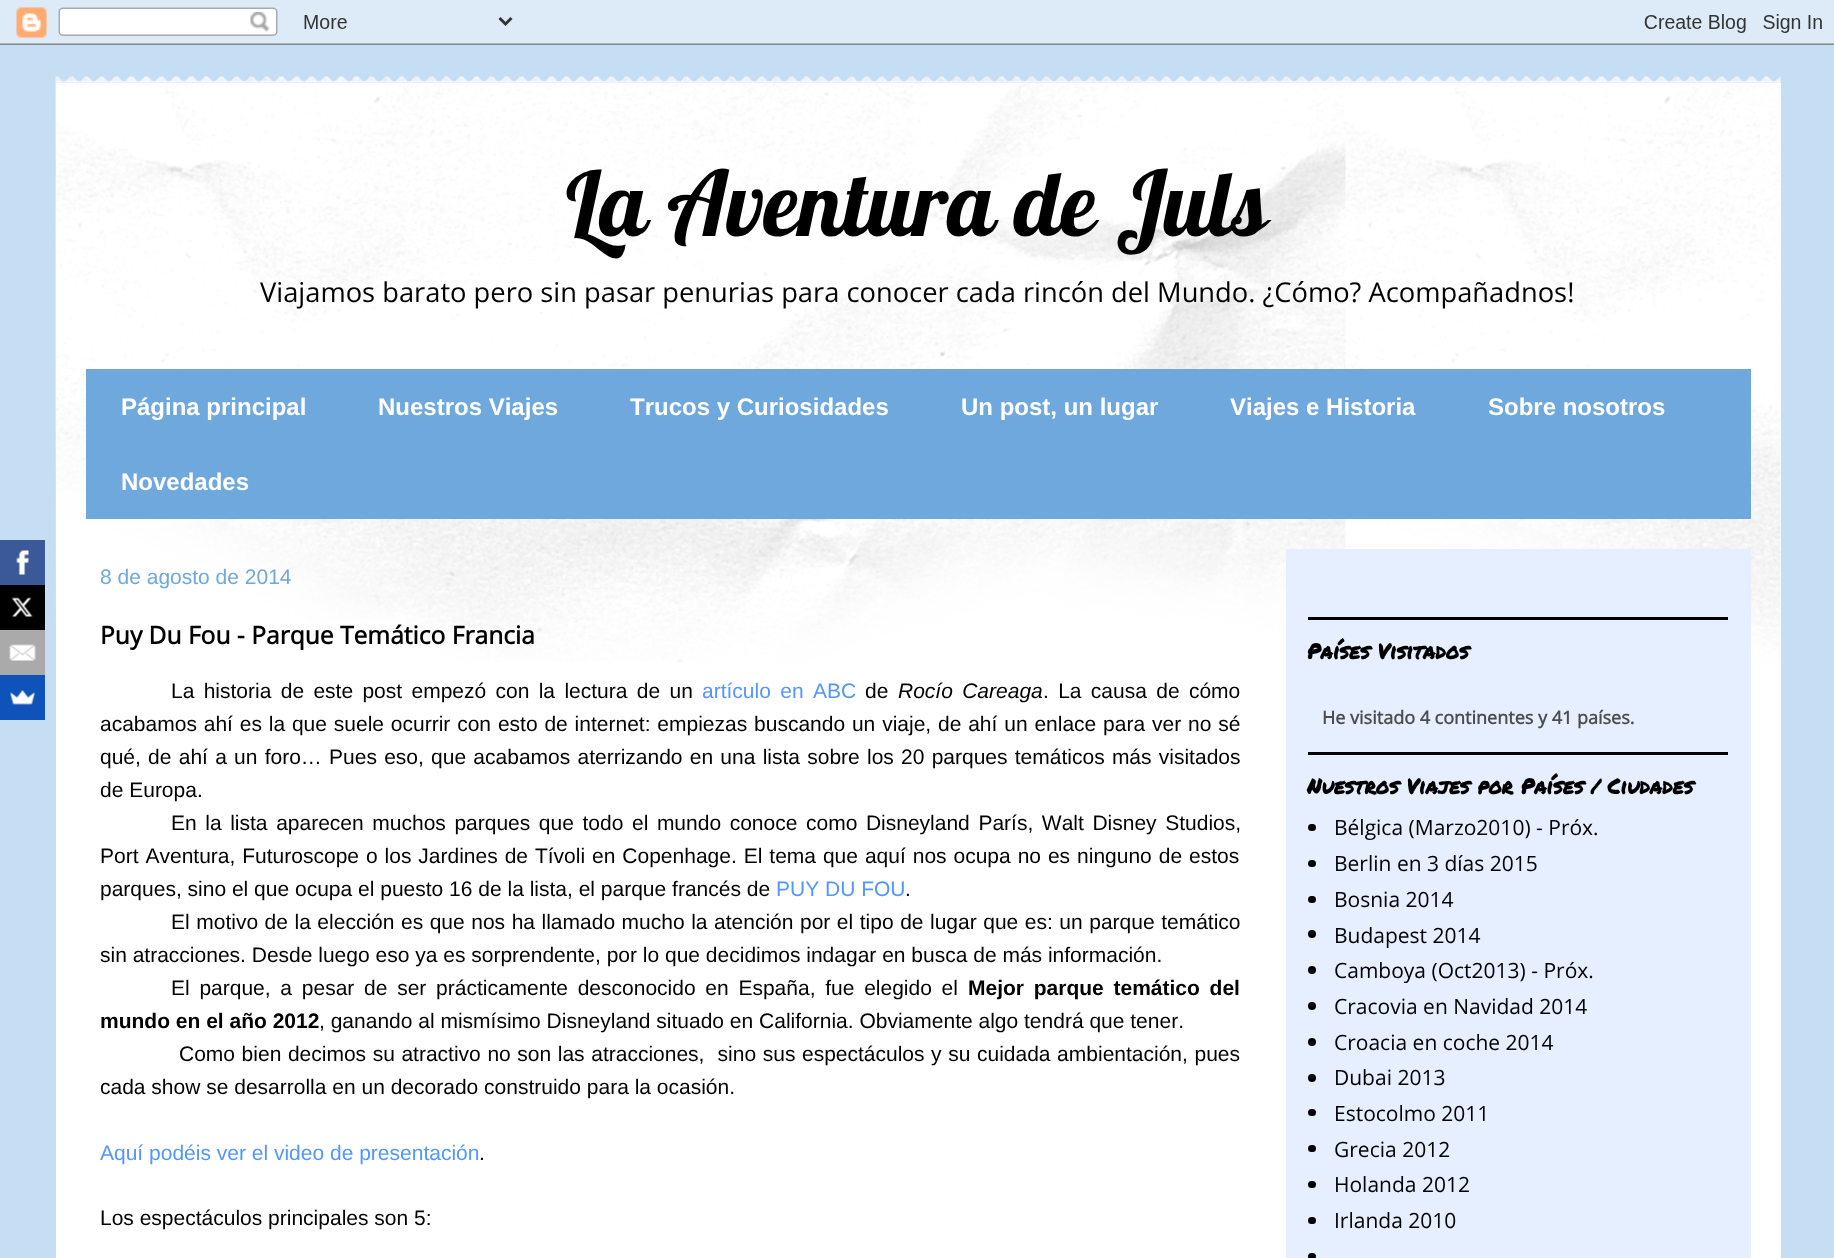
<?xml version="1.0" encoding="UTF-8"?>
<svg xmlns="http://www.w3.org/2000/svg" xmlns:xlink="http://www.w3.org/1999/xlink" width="1834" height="1258">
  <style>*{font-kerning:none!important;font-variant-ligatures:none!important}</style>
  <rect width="100%" height="100%" fill="#c6def4" />
  <image x="0" y="0" width="1834" height="45" xlink:href="image1.png" />
  <rect y="540" width="45" height="45" fill="#3b5998" />
  <image x="16" y="550" width="13" height="25" xlink:href="image2.png" />
  <rect y="585" width="45" height="45" fill="#000000" />
  <image x="11" y="597" width="22" height="20" xlink:href="image3.png" />
  <rect y="630" width="45" height="45" fill="#aaaaaa" />
  <image x="9" y="644" width="27" height="17" xlink:href="image4.png" />
  <rect y="675" width="45" height="45" fill="#0f52ba" />
  <image x="10" y="690" width="25" height="15" xlink:href="image5.png" />
  <image x="55" y="76" width="1726" height="7" xlink:href="image6.png" />
  <rect x="56" y="83" width="1725" height="1175" fill="#ffffff" />
  <image x="55" y="82" width="1726" height="581" xlink:href="image7.png" />
  <rect x="86" y="369" width="1665" height="150" fill="#6fa8dc" />
  <rect x="1286" y="549" width="465" height="709" fill="#e5efff" />
  <rect x="1308" y="617" width="420" height="3" fill="#000000" />
  <rect x="1308" y="752" width="420" height="3" fill="#000000" />
  <rect x="1308" y="824" width="8" height="7" rx="3.5" fill="#000000" />
  <rect x="1308" y="860" width="8" height="7" rx="3.5" fill="#000000" />
  <rect x="1308" y="896" width="8" height="7" rx="3.5" fill="#000000" />
  <circle cx="1312" cy="934" r="4" fill="#000000" />
  <circle cx="1312" cy="970" r="4" fill="#000000" />
  <circle cx="1312" cy="1006" r="4" fill="#000000" />
  <circle cx="1312" cy="1042" r="4" fill="#000000" />
  <circle cx="1312" cy="1078" r="4" fill="#000000" />
  <rect x="1308" y="1109" width="8" height="7" rx="3.5" fill="#000000" />
  <rect x="1308" y="1145" width="8" height="7" rx="3.5" fill="#000000" />
  <rect x="1308" y="1181" width="8" height="7" rx="3.5" fill="#000000" />
  <rect x="1308" y="1217" width="8" height="7" rx="3.5" fill="#000000" />
  <rect x="1308" y="1253" width="8" height="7" rx="3.5" fill="#000000" />
  <text x="566" y="236" style="font-family: Lobster; font-size: 90px; fill: #000000">La Aventura de Juls</text>
  <text x="260" y="302" style="font-family: Open Sans; font-size: 27.3px; fill: #000000">Viajamos barato pero sin pasar penurias para conocer cada rincón del Mundo. ¿Cómo? Acompañadnos!</text>
  <text x="121" y="415" style="font-family: Liberation Sans; font-size: 24px; font-weight: bold; fill: #ffffff">Página principal</text>
  <text x="378" y="415" style="font-family: Liberation Sans; font-size: 24px; font-weight: bold; fill: #ffffff">Nuestros Viajes</text>
  <text x="630" y="415" style="font-family: Liberation Sans; font-size: 24px; font-weight: bold; fill: #ffffff">Trucos y Curiosidades</text>
  <text x="961" y="415" style="font-family: Liberation Sans; font-size: 24px; font-weight: bold; fill: #ffffff">Un post, un lugar</text>
  <text x="1230" y="415" style="font-family: Liberation Sans; font-size: 24px; font-weight: bold; fill: #ffffff">Viajes e Historia</text>
  <text x="1488" y="415" style="font-family: Liberation Sans; font-size: 24px; font-weight: bold; fill: #ffffff">Sobre nosotros</text>
  <text x="121" y="490" style="font-family: Liberation Sans; font-size: 24px; font-weight: bold; fill: #ffffff">Novedades</text>
  <text x="100" y="584" style="font-family: Liberation Sans; font-size: 21px; fill: #6fa8dc">8 de agosto de 2014</text>
  <text x="100" y="644" style="font-family: Open Sans; font-size: 24.6px; font-weight: bold; fill: #000000">Puy Du Fou - Parque Temático Francia</text>
  <text x="171" y="698" word-spacing="3.5" style="font-family: Liberation Sans; font-size: 21px; fill: #000000">La historia de este post empezó con la lectura de un</text>
  <text x="702" y="698" word-spacing="3.5" style="font-family: Liberation Sans; font-size: 21px; fill: #5397fa">artículo en ABC</text>
  <text x="865" y="698" style="font-family: Liberation Sans; font-size: 21px; fill: #000000">de</text>
  <text x="898" y="698" word-spacing="3.5" style="font-family: Liberation Sans; font-size: 21px; font-style: italic; fill: #000000">Rocío Careaga</text>
  <text x="1043" y="698" word-spacing="3.5" style="font-family: Liberation Sans; font-size: 21px; fill: #000000">. La causa de cómo</text>
  <text x="100" y="731" word-spacing="1" style="font-family: Liberation Sans; font-size: 21px; fill: #000000">acabamos ahí es la que suele ocurrir con esto de internet: empiezas buscando un viaje, de ahí un enlace para ver no sé</text>
  <text x="100" y="764" word-spacing="1.4" style="font-family: Liberation Sans; font-size: 21px; fill: #000000">qué, de ahí a un foro… Pues eso, que acabamos aterrizando en una lista sobre los 20 parques temáticos más visitados</text>
  <text x="100" y="797" style="font-family: Liberation Sans; font-size: 21px; fill: #000000">de Europa.</text>
  <text x="171" y="830" word-spacing="2.75" style="font-family: Liberation Sans; font-size: 21px; fill: #000000">En la lista aparecen muchos parques que todo el mundo conoce como Disneyland París, Walt Disney Studios,</text>
  <text x="100" y="863" word-spacing="1.1" style="font-family: Liberation Sans; font-size: 21px; fill: #000000">Port Aventura, Futuroscope o los Jardines de Tívoli en Copenhage. El tema que aquí nos ocupa no es ninguno de estos</text>
  <text x="100" y="896" style="font-family: Liberation Sans; font-size: 21px; fill: #000000">parques, sino el que ocupa el puesto 16 de la lista, el parque francés de</text>
  <text x="776" y="896" style="font-family: Liberation Sans; font-size: 21px; fill: #5397fa">PUY DU FOU</text>
  <text x="905" y="896" style="font-family: Liberation Sans; font-size: 21px; fill: #000000">.</text>
  <text x="171" y="929" word-spacing="0.7" style="font-family: Liberation Sans; font-size: 21px; fill: #000000">El motivo de la elección es que nos ha llamado mucho la atención por el tipo de lugar que es: un parque temático</text>
  <text x="100" y="962" style="font-family: Liberation Sans; font-size: 21px; fill: #000000">sin atracciones. Desde luego eso ya es sorprendente, por lo que decidimos indagar en busca de más información.</text>
  <text x="171" y="995" word-spacing="3.9" style="font-family: Liberation Sans; font-size: 21px; fill: #000000">El parque, a pesar de ser prácticamente desconocido en España, fue elegido el</text>
  <text x="968" y="995" word-spacing="3.9" style="font-family: Liberation Sans; font-size: 21px; font-weight: bold; fill: #000000">Mejor parque temático del</text>
  <text x="100" y="1028" style="font-family: Liberation Sans; font-size: 21px; font-weight: bold; fill: #000000">mundo en el año 2012</text>
  <text x="319" y="1028" style="font-family: Liberation Sans; font-size: 21px; fill: #000000">, ganando al mismísimo Disneyland situado en California. Obviamente algo tendrá que tener.</text>
  <text x="179" y="1061" word-spacing="0.75" style="font-family: Liberation Sans; font-size: 21px; fill: #000000" xml:space="preserve">Como bien decimos su atractivo no son las atracciones,  sino sus espectáculos y su cuidada ambientación, pues</text>
  <text x="100" y="1094" style="font-family: Liberation Sans; font-size: 21px; fill: #000000">cada show se desarrolla en un decorado construido para la ocasión.</text>
  <text x="100" y="1160" style="font-family: Liberation Sans; font-size: 21px; fill: #5397fa">Aquí podéis ver el video de presentación</text>
  <text x="479" y="1160" style="font-family: Liberation Sans; font-size: 21px; fill: #000000">.</text>
  <text x="100" y="1225" style="font-family: Liberation Sans; font-size: 21px; fill: #000000">Los espectáculos principales son 5:</text>
  <text x="1307" y="659" style="font-family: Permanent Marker; font-size: 21px; font-weight: bold; fill: #000000">Países Visitados</text>
  <text x="1322" y="724" style="font-family: Open Sans; font-size: 18px; font-weight: bold; fill: #4c4c4c">He visitado 4 continentes y 41 países.</text>
  <text x="1307" y="794" style="font-family: Permanent Marker; font-size: 21px; font-weight: bold; fill: #000000">Nuestros Viajes por Países / Ciudades</text>
  <text x="1334" y="835" style="font-family: Open Sans; font-size: 21px; fill: #000000">Bélgica (Marzo2010) - Próx.</text>
  <text x="1334" y="871" style="font-family: Open Sans; font-size: 21px; fill: #000000">Berlin en 3 días 2015</text>
  <text x="1334" y="907" style="font-family: Open Sans; font-size: 21px; fill: #000000">Bosnia 2014</text>
  <text x="1334" y="943" style="font-family: Open Sans; font-size: 21px; fill: #000000">Budapest 2014</text>
  <text x="1334" y="978" style="font-family: Open Sans; font-size: 21px; fill: #000000">Camboya (Oct2013) - Próx.</text>
  <text x="1334" y="1014" style="font-family: Open Sans; font-size: 21px; fill: #000000">Cracovia en Navidad 2014</text>
  <text x="1334" y="1050" style="font-family: Open Sans; font-size: 21px; fill: #000000">Croacia en coche 2014</text>
  <text x="1334" y="1085" style="font-family: Open Sans; font-size: 21px; fill: #000000">Dubai 2013</text>
  <text x="1334" y="1121" style="font-family: Open Sans; font-size: 21px; fill: #000000">Estocolmo 2011</text>
  <text x="1334" y="1157" style="font-family: Open Sans; font-size: 21px; fill: #000000">Grecia 2012</text>
  <text x="1334" y="1192" style="font-family: Open Sans; font-size: 21px; fill: #000000">Holanda 2012</text>
  <text x="1334" y="1228" style="font-family: Open Sans; font-size: 21px; fill: #000000">Irlanda 2010</text>
</svg>
